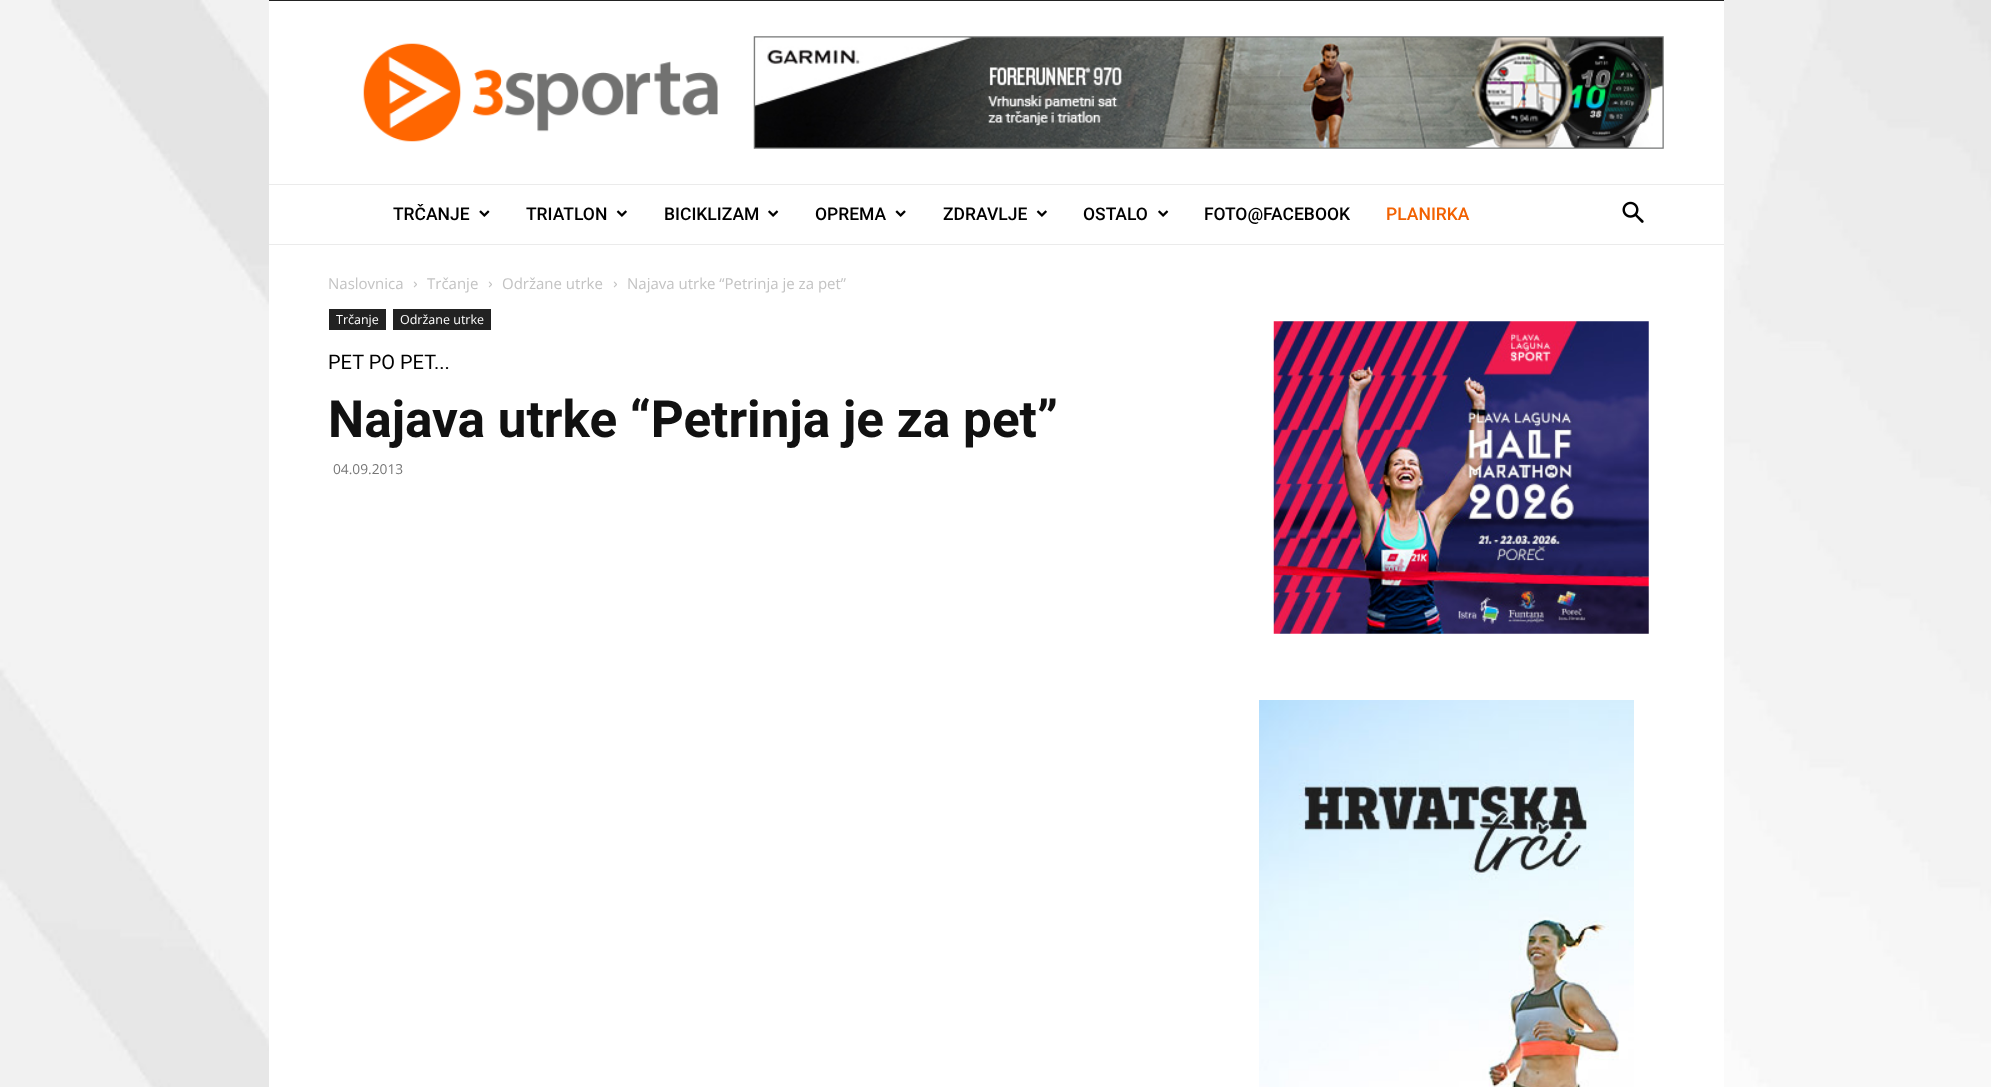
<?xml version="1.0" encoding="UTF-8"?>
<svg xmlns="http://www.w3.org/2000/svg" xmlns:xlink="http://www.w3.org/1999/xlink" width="1991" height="1087">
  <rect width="100%" height="100%" fill="#ffffff" />
  <image x="0" y="0" width="1991" height="1087" xlink:href="image1.png" />
  <rect x="269" width="1455" height="1" fill="#222222" />
  <rect x="269" y="1" width="1455" height="183" fill="#ffffff" />
  <image x="363" y="43" width="355" height="99" xlink:href="image2.png" />
  <image x="753" y="36" width="911" height="113" xlink:href="image3.png" />
  <rect x="269" y="185" width="1455" height="59" fill="#ffffff" />
  <rect x="269" y="184" width="1455" height="1" fill="#ebebeb" />
  <image x="479" y="210" width="11" height="7" xlink:href="image4.png" />
  <image x="616" y="210" width="11" height="7" xlink:href="image5.png" />
  <image x="768" y="210" width="11" height="7" xlink:href="image6.png" />
  <image x="895" y="210" width="11" height="7" xlink:href="image7.png" />
  <image x="1036" y="210" width="11" height="7" xlink:href="image5.png" />
  <image x="1158" y="210" width="11" height="7" xlink:href="image6.png" />
  <image x="1622" y="201" width="22" height="22" xlink:href="image8.png" />
  <rect x="269" y="244" width="1455" height="1" fill="#ebebeb" />
  <rect x="269" y="245" width="1455" height="842" fill="#ffffff" />
  <image x="413" y="281" width="4" height="7" xlink:href="image9.png" />
  <image x="488" y="281" width="4" height="7" xlink:href="image9.png" />
  <image x="613" y="281" width="4" height="7" xlink:href="image9.png" />
  <rect x="329" y="309" width="57" height="21" fill="#222222" />
  <rect x="393" y="309" width="98" height="21" fill="#222222" />
  <image x="1273" y="321" width="376" height="313" xlink:href="image10.png" />
  <image x="1259" y="700" width="375" height="387" xlink:href="image11.png" />
  <text x="393" y="220" style="font-family: Roboto; font-size: 17.5px; font-weight: 500; fill: #000000">TRČANJE</text>
  <text x="526" y="220" style="font-family: Roboto; font-size: 17.5px; font-weight: 500; fill: #000000">TRIATLON</text>
  <text x="664" y="220" style="font-family: Roboto; font-size: 17.5px; font-weight: 500; fill: #000000">BICIKLIZAM</text>
  <text x="815" y="220" style="font-family: Roboto; font-size: 17.5px; font-weight: 500; fill: #000000">OPREMA</text>
  <text x="943" y="220" style="font-family: Roboto; font-size: 17.5px; font-weight: 500; fill: #000000">ZDRAVLJE</text>
  <text x="1083" y="220" style="font-family: Roboto; font-size: 17.5px; font-weight: 500; fill: #000000">OSTALO</text>
  <text x="1204" y="220" style="font-family: Roboto; font-size: 17.5px; font-weight: 500; fill: #000000">FOTO@FACEBOOK</text>
  <text x="1386" y="220" style="font-family: Roboto; font-size: 17.5px; font-weight: 500; fill: #f26100">PLANIRKA</text>
  <text x="328" y="289" style="font-family: Open Sans; font-size: 15px; fill: #c3c3c3">Naslovnica</text>
  <text x="427" y="289" style="font-family: Open Sans; font-size: 15px; fill: #c3c3c3">Trčanje</text>
  <text x="502" y="289" style="font-family: Open Sans; font-size: 15px; fill: #c3c3c3">Održane utrke</text>
  <text x="627" y="289" style="font-family: Open Sans; font-size: 15px; fill: #c3c3c3">Najava utrke “Petrinja je za pet”</text>
  <text x="336" y="324" style="font-family: Open Sans; font-size: 12.5px; fill: #ffffff">Trčanje</text>
  <text x="400" y="324" style="font-family: Open Sans; font-size: 12.5px; fill: #ffffff">Održane utrke</text>
  <text x="328" y="369" style="font-family: Roboto; font-size: 20px; fill: #000000">PET PO PET...</text>
  <text x="328" y="437" style="font-family: Roboto; font-size: 51.25px; font-weight: bold; fill: #111111">Najava utrke “Petrinja je za pet”</text>
  <text x="333" y="474" style="font-family: Open Sans; font-size: 13.75px; fill: #767676">04.09.2013</text>
</svg>
